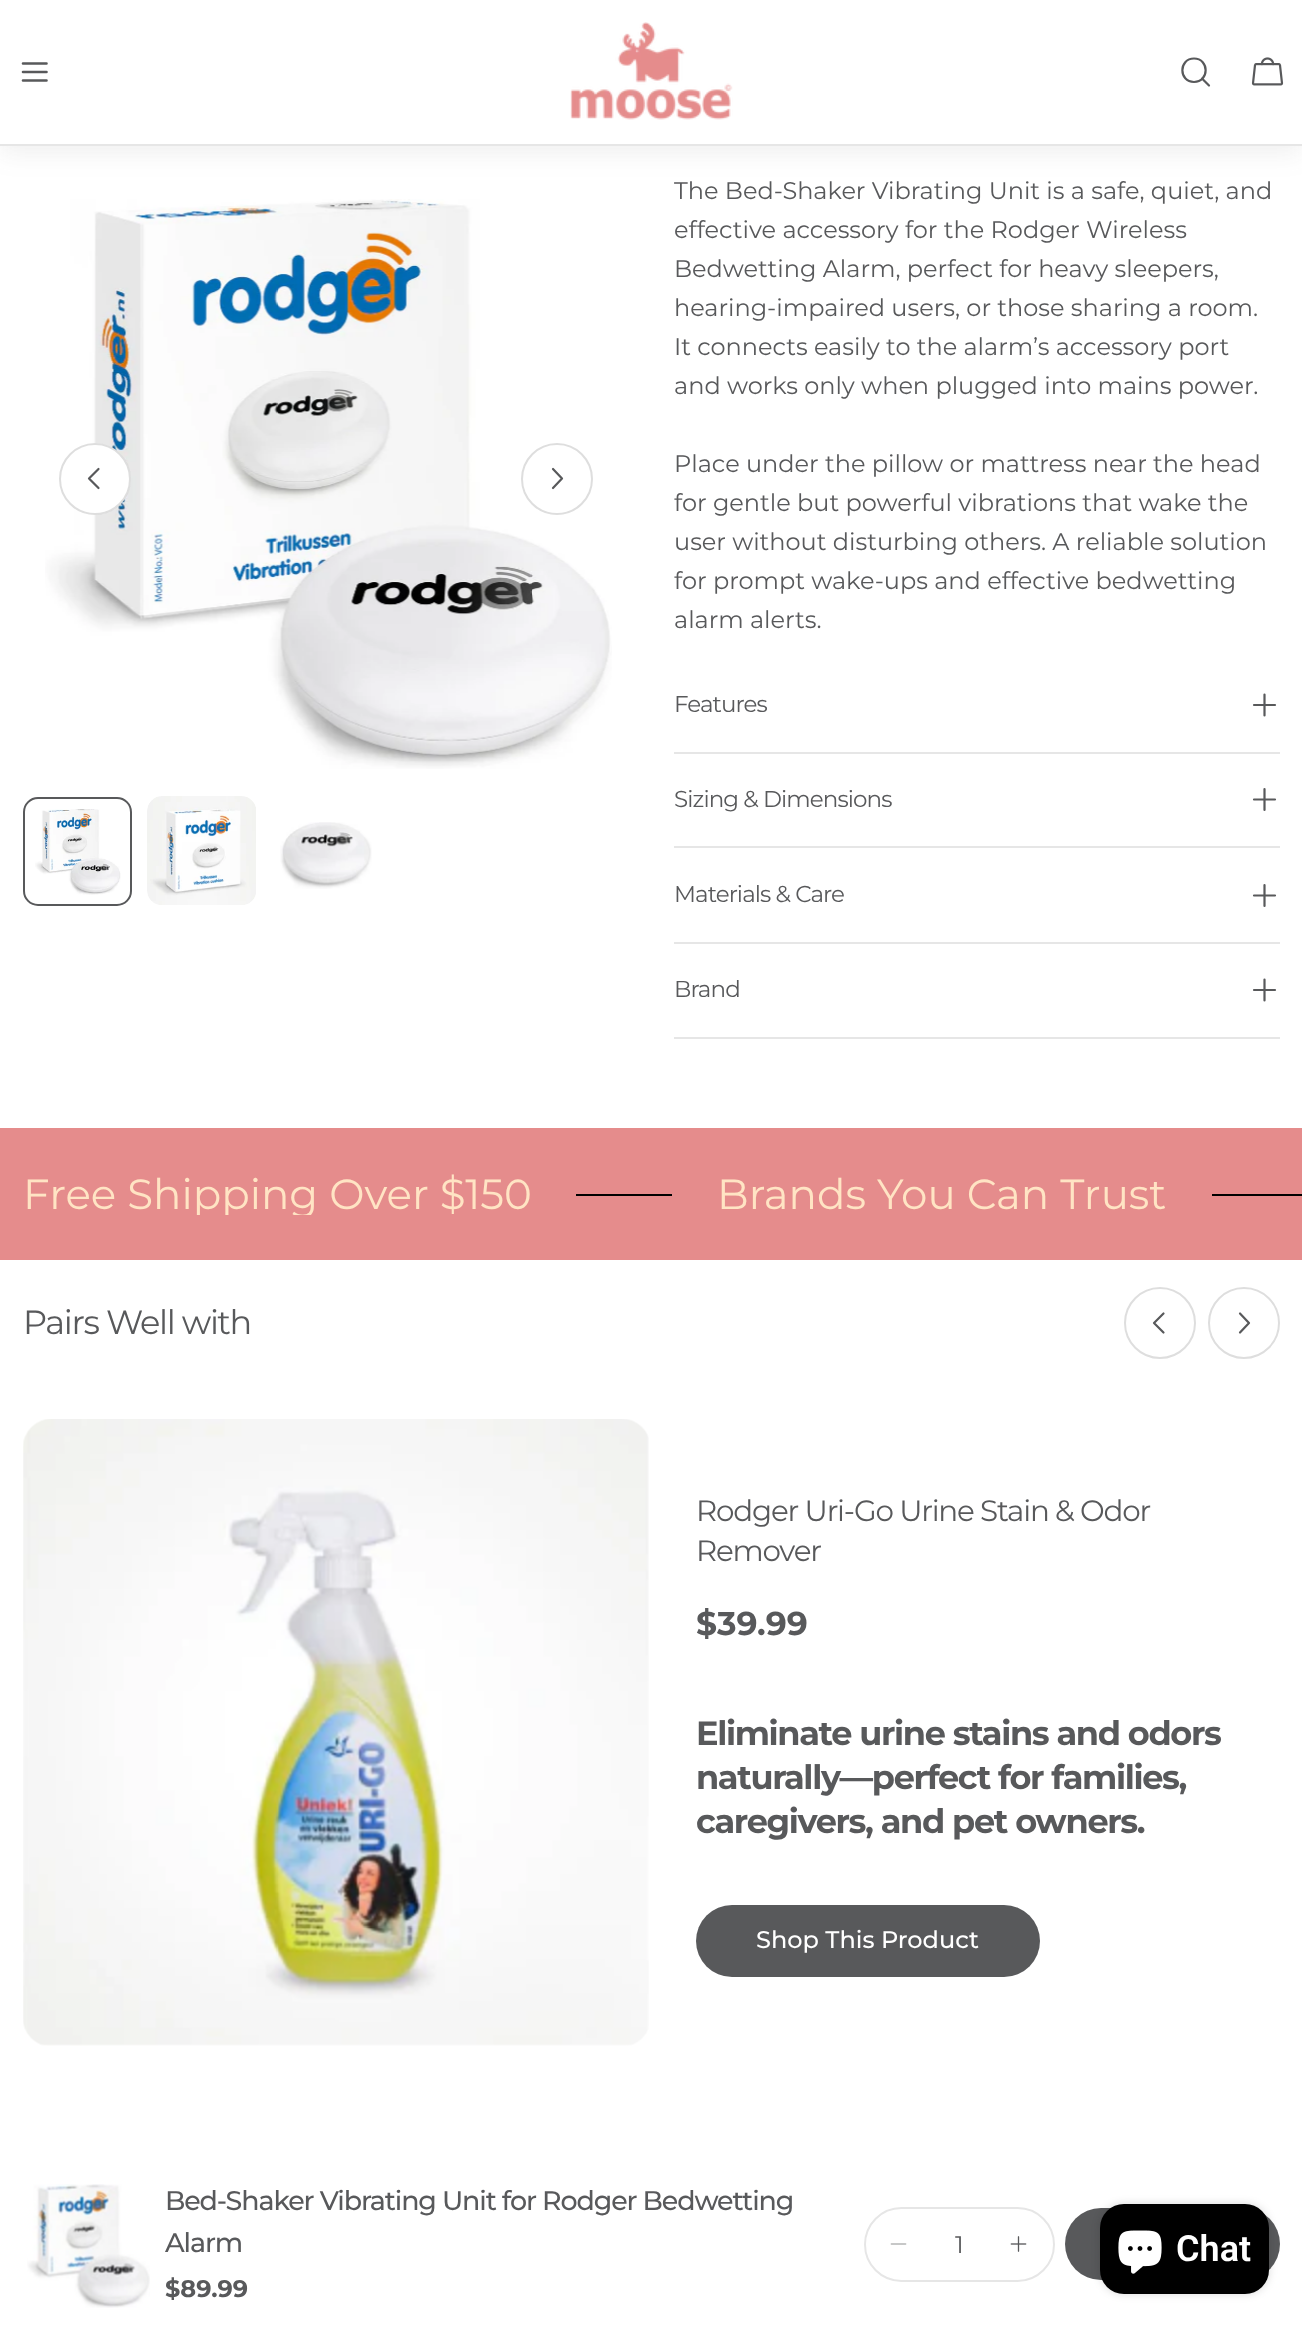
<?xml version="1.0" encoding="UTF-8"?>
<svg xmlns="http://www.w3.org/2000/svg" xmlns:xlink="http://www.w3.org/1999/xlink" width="1302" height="2325">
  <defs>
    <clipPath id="clip1"><rect y="1173" width="1302" height="42" /></clipPath>
  </defs>
  <rect width="100%" height="100%" fill="#ffffff" />
  <rect y="6" width="1302" height="146" fill="#58595b" fill-opacity="0.1" filter="blur(13.5px)" />
  <rect y="144" width="1302" height="2" fill="#e6e6e6" />
  <rect width="1302" height="144" fill="#ffffff" />
  <path d="M 23 72 h 23.5 m -23.5 -8.5 h 23.5 m -23.5 17 h 23.5" fill="none" stroke="#58595b" stroke-width="2.6" stroke-linecap="round" stroke-linejoin="round" />
  <image x="570" y="22" width="163" height="98" xlink:href="image1.png" />
  <path d="M 1194 82 c 15.5 0 15.5 -23.5 0 -23.5 c -15.5 0 -15.5 23.5 0 23.5 z m 8 -3.5 l 7 7" fill="none" stroke="#58595b" stroke-width="2.2" stroke-linecap="round" stroke-linejoin="round" />
  <image x="1251" y="57" width="33" height="29" xlink:href="image2.png" />
  <image x="45" y="199" width="567" height="570" xlink:href="image3.png" />
  <circle cx="95" cy="479" r="36" fill="#ffffff" />
  <circle cx="95" cy="479" r="35" fill="none" stroke="#58595b" stroke-opacity="0.2" stroke-width="2" />
  <path d="M 98.5 488 l -9.5 -9.5 l 9.5 -9.5" fill="none" stroke="#58595b" stroke-width="2.2" stroke-linecap="round" stroke-linejoin="round" />
  <circle cx="557" cy="479" r="35" fill="none" stroke="#dedede" stroke-width="2" />
  <path d="M 553 469 l 9 9.5 l -9 9.5" fill="none" stroke="#58595b" stroke-width="2.2" stroke-linecap="round" stroke-linejoin="round" />
  <image x="35" y="809" width="86" height="86" xlink:href="image4.png" />
  <rect x="24" y="798" width="107" height="107" rx="14" fill="none" stroke="#58595b" stroke-width="2" />
  <image x="147" y="796" width="109" height="109" xlink:href="image5.png" />
  <image x="280" y="822" width="92" height="67" xlink:href="image6.png" />
  <rect x="674" y="752" width="606" height="2" fill="#e6e6e6" />
  <path d="M 1254 705 h 21 m -10.5 -10.5 v 21" fill="none" stroke="#58595b" stroke-width="2.2" stroke-linecap="round" stroke-linejoin="round" />
  <rect x="674" y="846" width="606" height="2" fill="#e6e6e6" />
  <path d="M 1254 799.5 h 21 m -10.5 -10.5 v 21" fill="none" stroke="#58595b" stroke-width="2.2" stroke-linecap="round" stroke-linejoin="round" />
  <rect x="674" y="942" width="606" height="2" fill="#e6e6e6" />
  <path d="M 1254 895.5 h 21 m -10.5 -10.5 v 21" fill="none" stroke="#58595b" stroke-width="2.2" stroke-linecap="round" stroke-linejoin="round" />
  <rect x="674" y="1037" width="606" height="2" fill="#e6e6e6" />
  <path d="M 1254 990 h 21 m -10.5 -10.5 v 21" fill="none" stroke="#58595b" stroke-width="2.2" stroke-linecap="round" stroke-linejoin="round" />
  <rect y="1128" width="1302" height="132" fill="#e58c8c" />
  <rect x="576" y="1194" width="96" height="2" fill="#000000" />
  <rect x="1212" y="1194" width="90" height="2" fill="#000000" />
  <circle cx="1160" cy="1323" r="35" fill="none" stroke="#dedede" stroke-width="2" />
  <path d="M 1163.5 1332.5 l -9.5 -9.5 l 9.5 -9.5" fill="none" stroke="#58595b" stroke-width="2.2" stroke-linecap="round" stroke-linejoin="round" />
  <circle cx="1244" cy="1323" r="35" fill="none" stroke="#dedede" stroke-width="2" />
  <path d="M 1240 1313.5 l 9 9.5 l -9 9.5" fill="none" stroke="#58595b" stroke-width="2.2" stroke-linecap="round" stroke-linejoin="round" />
  <image x="23" y="1419" width="626" height="627" xlink:href="image7.png" />
  <rect x="696" y="1905" width="344" height="72" rx="36" fill="#58595b" />
  <image x="27" y="2184" width="123" height="124" xlink:href="image8.png" />
  <rect x="865" y="2208" width="189" height="73" rx="36.5" fill="none" stroke="#e6e6e6" stroke-width="2" />
  <image x="890" y="2243" width="17" height="2" xlink:href="image9.png" />
  <image x="1010" y="2236" width="17" height="16" xlink:href="image10.png" />
  <rect x="1065" y="2208" width="215" height="72" rx="36" fill="#58595b" />
  <rect x="1100" y="2204" width="169" height="90" rx="24" fill="#000000" fill-opacity="0.15" filter="blur(4px)" />
  <rect x="1100" y="2204" width="169" height="90" rx="24" fill="#000000" />
  <image x="1118" y="2230" width="44" height="44" xlink:href="image11.png" />
  <text x="674" y="199" style="font-family: Montserrat; font-size: 24px; fill: #58595b">The Bed-Shaker Vibrating Unit is a safe, quiet, and</text>
  <text x="674" y="238" style="font-family: Montserrat; font-size: 24px; fill: #58595b">effective accessory for the Rodger Wireless</text>
  <text x="674" y="277" style="font-family: Montserrat; font-size: 24px; fill: #58595b">Bedwetting Alarm, perfect for heavy sleepers,</text>
  <text x="674" y="316" style="font-family: Montserrat; font-size: 24px; fill: #58595b">hearing-impaired users, or those sharing a room.</text>
  <text x="674" y="355" style="font-family: Montserrat; font-size: 24px; fill: #58595b">It connects easily to the alarm’s accessory port</text>
  <text x="674" y="394" style="font-family: Montserrat; font-size: 24px; fill: #58595b">and works only when plugged into mains power.</text>
  <text x="674" y="472" style="font-family: Montserrat; font-size: 24px; fill: #58595b">Place under the pillow or mattress near the head</text>
  <text x="674" y="511" style="font-family: Montserrat; font-size: 24px; fill: #58595b">for gentle but powerful vibrations that wake the</text>
  <text x="674" y="550" style="font-family: Montserrat; font-size: 24px; fill: #58595b">user without disturbing others. A reliable solution</text>
  <text x="674" y="589" style="font-family: Montserrat; font-size: 24px; fill: #58595b">for prompt wake-ups and effective bedwetting</text>
  <text x="674" y="628" style="font-family: Montserrat; font-size: 24px; fill: #58595b">alarm alerts.</text>
  <text x="674" y="712" style="font-family: Montserrat; font-size: 23px; letter-spacing: -0.9px; fill: #58595b">Features</text>
  <text x="674" y="807" style="font-family: Montserrat; font-size: 23px; letter-spacing: -0.9px; fill: #58595b">Sizing &amp; Dimensions</text>
  <text x="674" y="902" style="font-family: Montserrat; font-size: 23px; letter-spacing: -0.9px; fill: #58595b">Materials &amp; Care</text>
  <text x="674" y="997" style="font-family: Montserrat; font-size: 23px; letter-spacing: -0.9px; fill: #58595b">Brand</text>
  <g clip-path="url(#clip1)">
    <text x="23" y="1209" style="font-family: Montserrat; font-size: 42px; fill: #ffe4c4">Free Shipping Over $150</text>
  </g>
  <text x="717" y="1209" style="font-family: Montserrat; font-size: 42px; fill: #ffe4c4">Brands You Can Trust</text>
  <text x="23" y="1334" style="font-family: Montserrat; font-size: 33.6px; letter-spacing: -1.35px; fill: #58595b">Pairs Well with</text>
  <text x="696" y="1521" style="font-family: Montserrat; font-size: 29.4px; letter-spacing: -1.2px; fill: #58595b">Rodger Uri-Go Urine Stain &amp; Odor</text>
  <text x="696" y="1561" style="font-family: Montserrat; font-size: 29.4px; letter-spacing: -1.2px; fill: #58595b">Remover</text>
  <text x="696" y="1635" style="font-family: Montserrat; font-size: 33px; font-weight: bold; fill: #58595b">$39.99</text>
  <text x="696" y="1745" style="font-family: Montserrat; font-size: 33.6px; font-weight: bold; letter-spacing: -1.35px; fill: #58595b">Eliminate urine stains and odors</text>
  <text x="696" y="1789" style="font-family: Montserrat; font-size: 33.6px; font-weight: bold; letter-spacing: -1.35px; fill: #58595b">naturally—perfect for families,</text>
  <text x="696" y="1833" style="font-family: Montserrat; font-size: 33.6px; font-weight: bold; letter-spacing: -1.35px; fill: #58595b">caregivers, and pet owners.</text>
  <text x="756" y="1948" style="font-family: Montserrat; font-size: 24px; font-weight: 500; fill: #ffffff">Shop This Product</text>
  <text x="165" y="2210" style="font-family: Montserrat; font-size: 26.9px; font-weight: 500; letter-spacing: -1.1px; fill: #58595b">Bed-Shaker Vibrating Unit for Rodger Bedwetting</text>
  <text x="165" y="2252" style="font-family: Montserrat; font-size: 26.9px; font-weight: 500; letter-spacing: -1.1px; fill: #58595b">Alarm</text>
  <text x="165" y="2297" style="font-family: Montserrat; font-size: 24px; font-weight: bold; fill: #58595b">$89.99</text>
  <text x="955" y="2253" style="font-family: Montserrat; font-size: 24px; fill: #58595b">1</text>
  <text x="1176" y="2261" style="font-family: Roboto; font-size: 36px; font-weight: 600; fill: #ffffff">Chat</text>
</svg>
